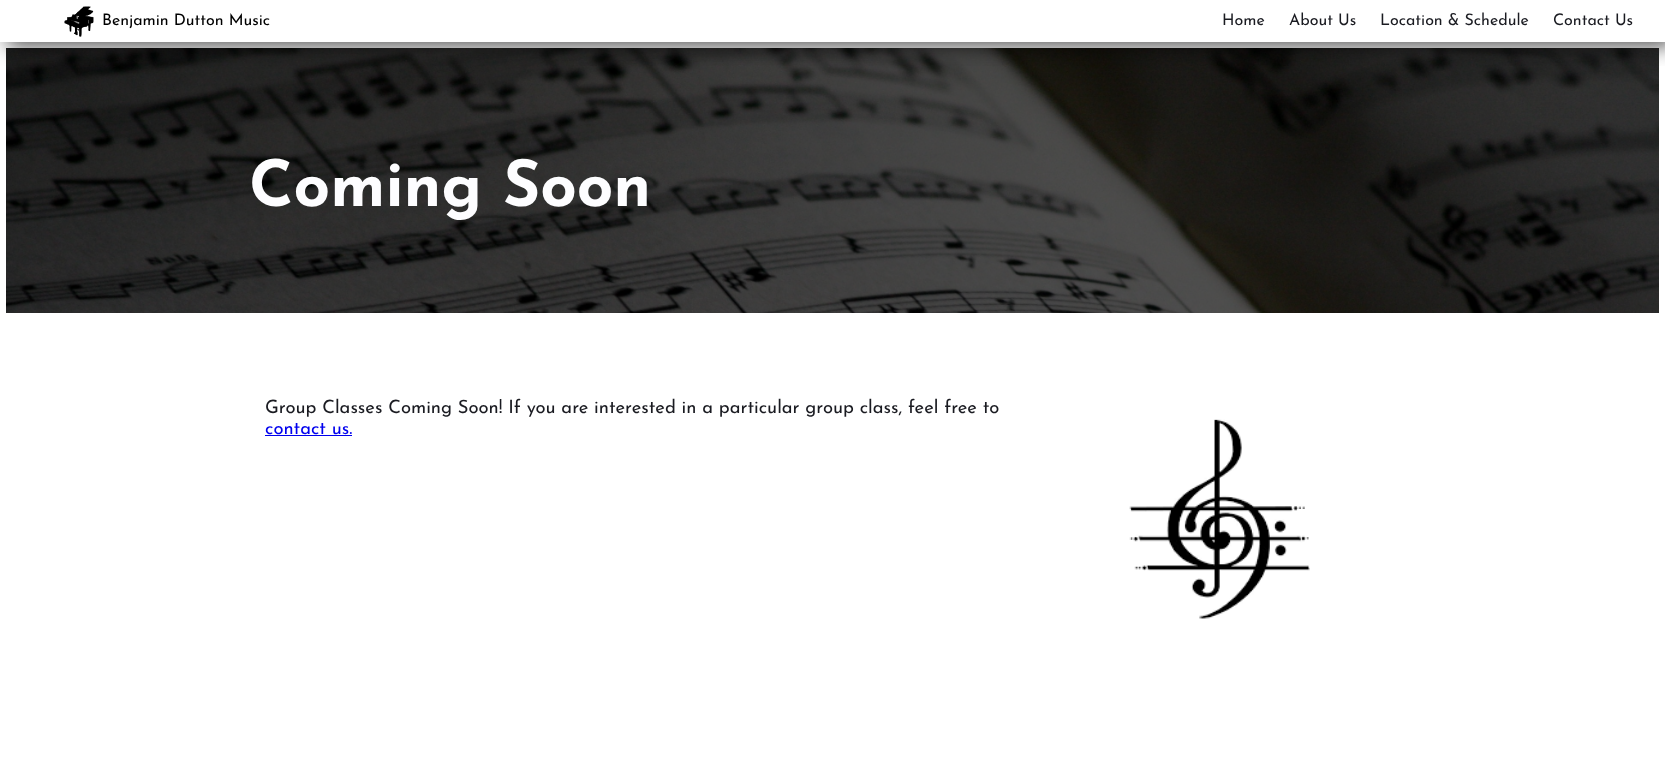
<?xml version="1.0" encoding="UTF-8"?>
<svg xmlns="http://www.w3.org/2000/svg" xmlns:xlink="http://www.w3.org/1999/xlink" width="1665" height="775">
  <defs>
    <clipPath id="clip1"><rect x="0" y="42" width="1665" height="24" /></clipPath>
  </defs>
  <rect width="100%" height="100%" fill="#ffffff" />
  <image x="6" y="48" width="1653" height="265" xlink:href="image2.png" />
  <g clip-path="url(#clip1)">
    <rect x="7" y="5" width="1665" height="42" fill="#000000" fill-opacity="0.65" filter="blur(10px)" />
  </g>
  <image x="64" y="6" width="30" height="31" xlink:href="image1.png" />
  <rect x="265" y="435" width="87" height="1" fill="#0000ee" />
  <image x="1129" y="419" width="181" height="200" xlink:href="image3.png" />
  <text x="102" y="25" style="font-family: Josefin Sans; font-size: 16px; fill: #000000">Benjamin Dutton Music</text>
  <text x="1222" y="25" style="font-family: Josefin Sans; font-size: 16px; fill: #1a1b21">Home</text>
  <text x="1289" y="25" style="font-family: Josefin Sans; font-size: 16px; fill: #1a1b21">About Us</text>
  <text x="1380" y="25" style="font-family: Josefin Sans; font-size: 16px; fill: #1a1b21">Location &amp; Schedule</text>
  <text x="1553" y="25" style="font-family: Josefin Sans; font-size: 16px; fill: #1a1b21">Contact Us</text>
  <text x="249" y="206" style="font-family: Josefin Sans; font-size: 64px; font-weight: bold; fill: #fdfdff">Coming Soon</text>
  <text x="265" y="413" style="font-family: Josefin Sans; font-size: 18.4px; fill: #1a1b21">Group Classes Coming Soon! If you are interested in a particular group class, feel free to</text>
  <text x="265" y="434" style="font-family: Josefin Sans; font-size: 18.4px; fill: #0000ee">contact us.</text>
</svg>
